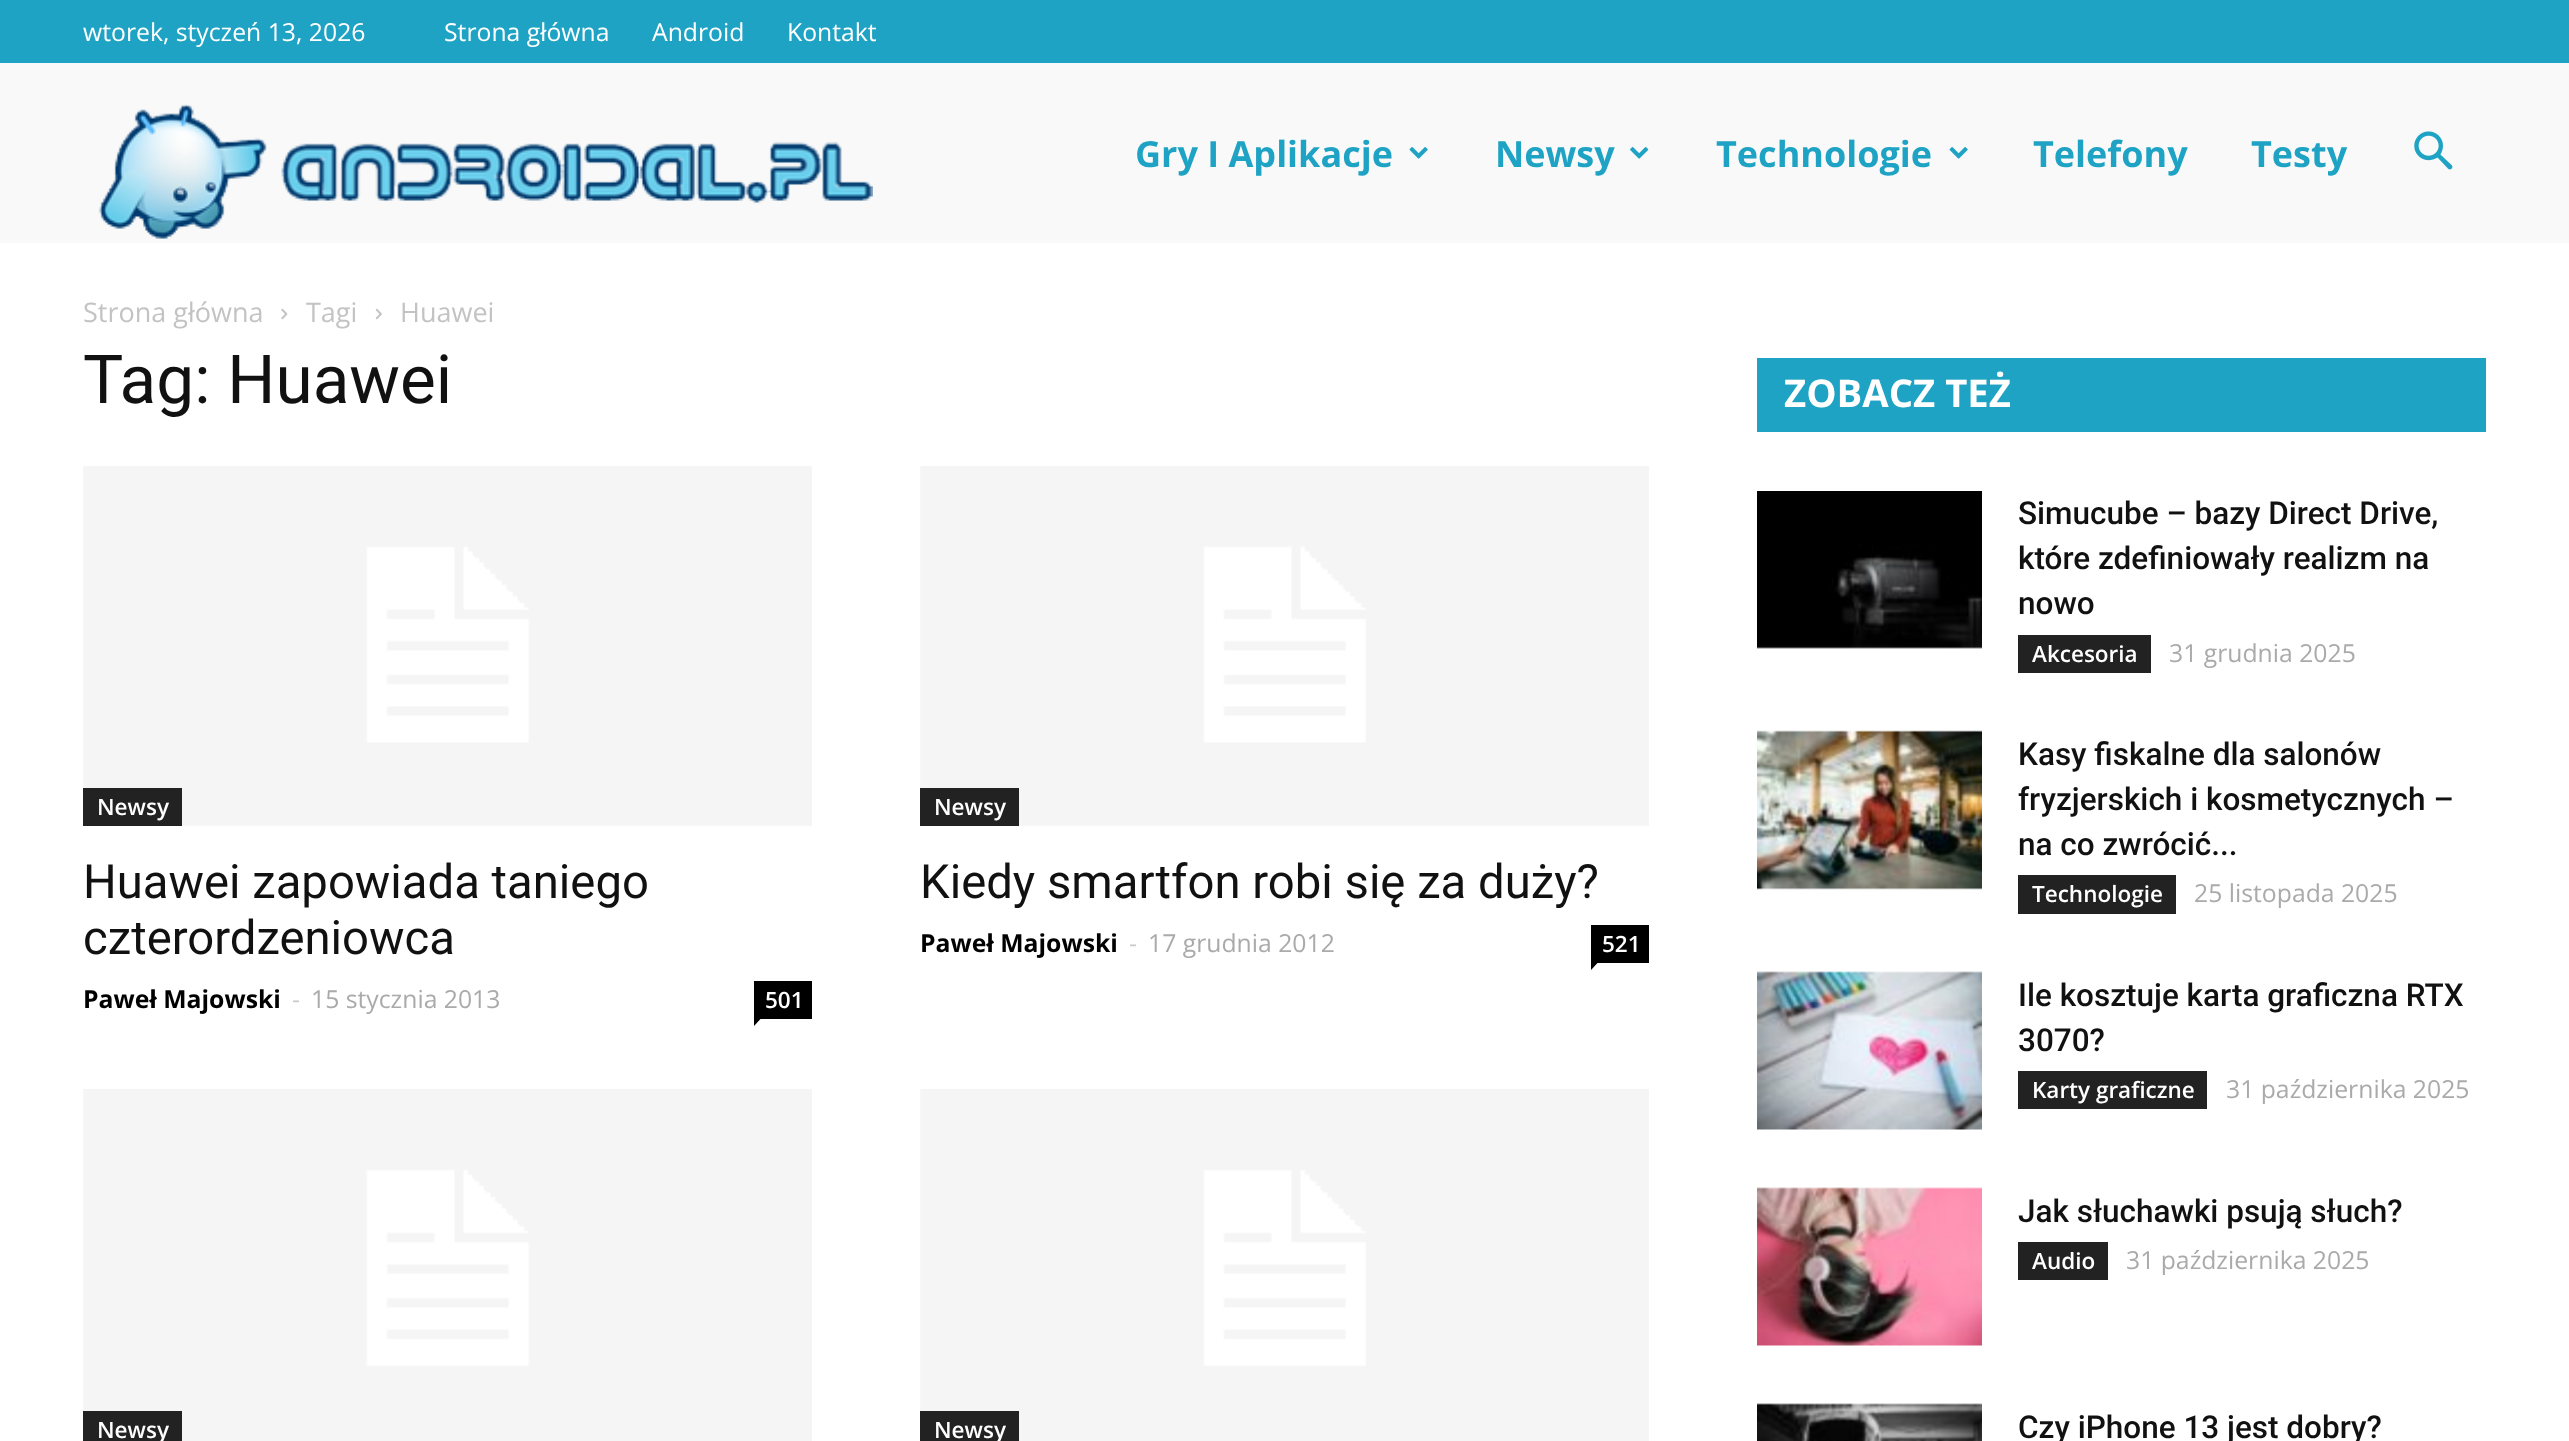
<?xml version="1.0" encoding="UTF-8"?>
<svg xmlns="http://www.w3.org/2000/svg" xmlns:xlink="http://www.w3.org/1999/xlink" width="2569" height="1441">
  <rect width="100%" height="100%" fill="#ffffff" />
  <rect width="2569" height="63" fill="#1fa3c4" />
  <rect y="63" width="2569" height="180" fill="#f9f9f9" />
  <image x="98" y="104" width="775" height="135" xlink:href="image1.png" />
  <image x="1409" y="147" width="19" height="12" xlink:href="image2.png" />
  <image x="1630" y="147" width="19" height="12" xlink:href="image3.png" />
  <image x="1949" y="147" width="19" height="12" xlink:href="image2.png" />
  <image x="2414" y="131" width="39" height="39" xlink:href="image4.png" />
  <image x="281" y="308" width="7" height="12" xlink:href="image5.png" />
  <image x="375" y="308" width="7" height="12" xlink:href="image6.png" />
  <image x="83" y="466" width="729" height="360" xlink:href="image7.png" />
  <rect x="83" y="788" width="99" height="38" fill="#222222" />
  <rect x="754" y="981" width="58" height="38" fill="#000000" />
  <path d="M 754 1019 h 6.5 l -6.5 7 z" fill="#000000" />
  <image x="920" y="466" width="729" height="360" xlink:href="image7.png" />
  <rect x="920" y="788" width="99" height="38" fill="#222222" />
  <rect x="1591" y="925" width="58" height="38" fill="#000000" />
  <path d="M 1591 963 h 6.5 l -6.5 7 z" fill="#000000" />
  <image x="83" y="1089" width="729" height="352" xlink:href="image8.png" />
  <rect x="83" y="1411" width="99" height="30" fill="#222222" />
  <image x="920" y="1089" width="729" height="352" xlink:href="image8.png" />
  <rect x="920" y="1411" width="99" height="30" fill="#222222" />
  <rect x="1757" y="358" width="729" height="74" fill="#1fa3c4" />
  <image x="1757" y="491" width="225" height="158" xlink:href="image9.png" />
  <rect x="2018" y="635" width="133" height="38" fill="#222222" />
  <image x="1757" y="730" width="225" height="160" xlink:href="image10.png" />
  <rect x="2018" y="875" width="158" height="39" fill="#222222" />
  <image x="1757" y="971" width="225" height="159" xlink:href="image11.png" />
  <rect x="2018" y="1071" width="189" height="38" fill="#222222" />
  <image x="1757" y="1187" width="225" height="159" xlink:href="image12.png" />
  <rect x="2018" y="1242" width="90" height="38" fill="#222222" />
  <image x="1757" y="1403" width="225" height="38" xlink:href="image13.png" />
  <text x="83" y="41" style="font-family: Open Sans; font-size: 24.75px; fill: #ffffff">wtorek, styczeń 13, 2026</text>
  <text x="444" y="41" style="font-family: Open Sans; font-size: 24.75px; fill: #ffffff">Strona główna</text>
  <text x="652" y="41" style="font-family: Open Sans; font-size: 24.75px; fill: #ffffff">Android</text>
  <text x="787" y="41" style="font-family: Open Sans; font-size: 24.75px; fill: #ffffff">Kontakt</text>
  <text x="1135" y="167" style="font-family: Open Sans; font-size: 36px; font-weight: bold; fill: #1fa3c4">Gry I Aplikacje</text>
  <text x="1495" y="167" style="font-family: Open Sans; font-size: 36px; font-weight: bold; fill: #1fa3c4">Newsy</text>
  <text x="1716" y="167" style="font-family: Open Sans; font-size: 36px; font-weight: bold; fill: #1fa3c4">Technologie</text>
  <text x="2033" y="167" style="font-family: Open Sans; font-size: 36px; font-weight: bold; fill: #1fa3c4">Telefony</text>
  <text x="2251" y="167" style="font-family: Open Sans; font-size: 36px; font-weight: bold; fill: #1fa3c4">Testy</text>
  <text x="83" y="322" style="font-family: Open Sans; font-size: 27px; fill: #c3c3c3">Strona główna</text>
  <text x="306" y="322" style="font-family: Open Sans; font-size: 27px; fill: #c3c3c3">Tagi</text>
  <text x="400" y="322" style="font-family: Open Sans; font-size: 27px; fill: #c3c3c3">Huawei</text>
  <text x="83" y="403" style="font-family: Roboto; font-size: 67.5px; fill: #111111">Tag: Huawei</text>
  <text x="97" y="815" style="font-family: Open Sans; font-size: 22.5px; font-weight: 600; fill: #ffffff">Newsy</text>
  <text x="83" y="898" style="font-family: Roboto; font-size: 47.25px; fill: #111111">Huawei zapowiada taniego</text>
  <text x="83" y="954" style="font-family: Roboto; font-size: 47.25px; fill: #111111">czterordzeniowca</text>
  <text x="83" y="1008" style="font-family: Open Sans; font-size: 24.75px; font-weight: bold; fill: #000000">Paweł Majowski</text>
  <text x="292" y="1008" style="font-family: Open Sans; font-size: 24.75px; fill: #cccccc">-</text>
  <text x="311" y="1008" style="font-family: Open Sans; font-size: 24.75px; fill: #aaaaaa">15 stycznia 2013</text>
  <text x="765" y="1008" style="font-family: Open Sans; font-size: 22.5px; font-weight: 600; fill: #ffffff">501</text>
  <text x="934" y="815" style="font-family: Open Sans; font-size: 22.5px; font-weight: 600; fill: #ffffff">Newsy</text>
  <text x="920" y="898" style="font-family: Roboto; font-size: 47.25px; fill: #111111">Kiedy smartfon robi się za duży?</text>
  <text x="920" y="952" style="font-family: Open Sans; font-size: 24.75px; font-weight: bold; fill: #000000">Paweł Majowski</text>
  <text x="1129" y="952" style="font-family: Open Sans; font-size: 24.75px; fill: #cccccc">-</text>
  <text x="1148" y="952" style="font-family: Open Sans; font-size: 24.75px; fill: #aaaaaa">17 grudnia 2012</text>
  <text x="1602" y="952" style="font-family: Open Sans; font-size: 22.5px; font-weight: 600; fill: #ffffff">521</text>
  <text x="97" y="1438" style="font-family: Open Sans; font-size: 22.5px; font-weight: 600; fill: #ffffff">Newsy</text>
  <text x="934" y="1438" style="font-family: Open Sans; font-size: 22.5px; font-weight: 600; fill: #ffffff">Newsy</text>
  <text x="1784" y="407" style="font-family: Open Sans; font-size: 38.25px; font-weight: bold; fill: #ffffff">ZOBACZ TEŻ</text>
  <text x="2018" y="524" style="font-family: Roboto; font-size: 31.5px; font-weight: 500; fill: #111111">Simucube – bazy Direct Drive,</text>
  <text x="2018" y="569" style="font-family: Roboto; font-size: 31.5px; font-weight: 500; fill: #111111">które zdefiniowały realizm na</text>
  <text x="2018" y="614" style="font-family: Roboto; font-size: 31.5px; font-weight: 500; fill: #111111">nowo</text>
  <text x="2032" y="662" style="font-family: Open Sans; font-size: 22.5px; font-weight: 600; fill: #ffffff">Akcesoria</text>
  <text x="2169" y="662" style="font-family: Open Sans; font-size: 24.75px; fill: #aaaaaa">31 grudnia 2025</text>
  <text x="2018" y="765" style="font-family: Roboto; font-size: 31.5px; font-weight: 500; fill: #111111">Kasy fiskalne dla salonów</text>
  <text x="2018" y="810" style="font-family: Roboto; font-size: 31.5px; font-weight: 500; fill: #111111">fryzjerskich i kosmetycznych –</text>
  <text x="2018" y="855" style="font-family: Roboto; font-size: 31.5px; font-weight: 500; fill: #111111">na co zwrócić...</text>
  <text x="2032" y="902" style="font-family: Open Sans; font-size: 22.5px; font-weight: 600; fill: #ffffff">Technologie</text>
  <text x="2194" y="902" style="font-family: Open Sans; font-size: 24.75px; fill: #aaaaaa">25 listopada 2025</text>
  <text x="2018" y="1006" style="font-family: Roboto; font-size: 31.5px; font-weight: 500; fill: #111111">Ile kosztuje karta graficzna RTX</text>
  <text x="2018" y="1051" style="font-family: Roboto; font-size: 31.5px; font-weight: 500; fill: #111111">3070?</text>
  <text x="2032" y="1098" style="font-family: Open Sans; font-size: 22.5px; font-weight: 600; fill: #ffffff">Karty graficzne</text>
  <text x="2226" y="1098" style="font-family: Open Sans; font-size: 24.75px; fill: #aaaaaa">31 października 2025</text>
  <text x="2018" y="1222" style="font-family: Roboto; font-size: 31.5px; font-weight: 500; fill: #111111">Jak słuchawki psują słuch?</text>
  <text x="2032" y="1269" style="font-family: Open Sans; font-size: 22.5px; font-weight: 600; fill: #ffffff">Audio</text>
  <text x="2126" y="1269" style="font-family: Open Sans; font-size: 24.75px; fill: #aaaaaa">31 października 2025</text>
  <text x="2018" y="1438" style="font-family: Roboto; font-size: 31.5px; font-weight: 500; fill: #111111">Czy iPhone 13 jest dobry?</text>
</svg>
